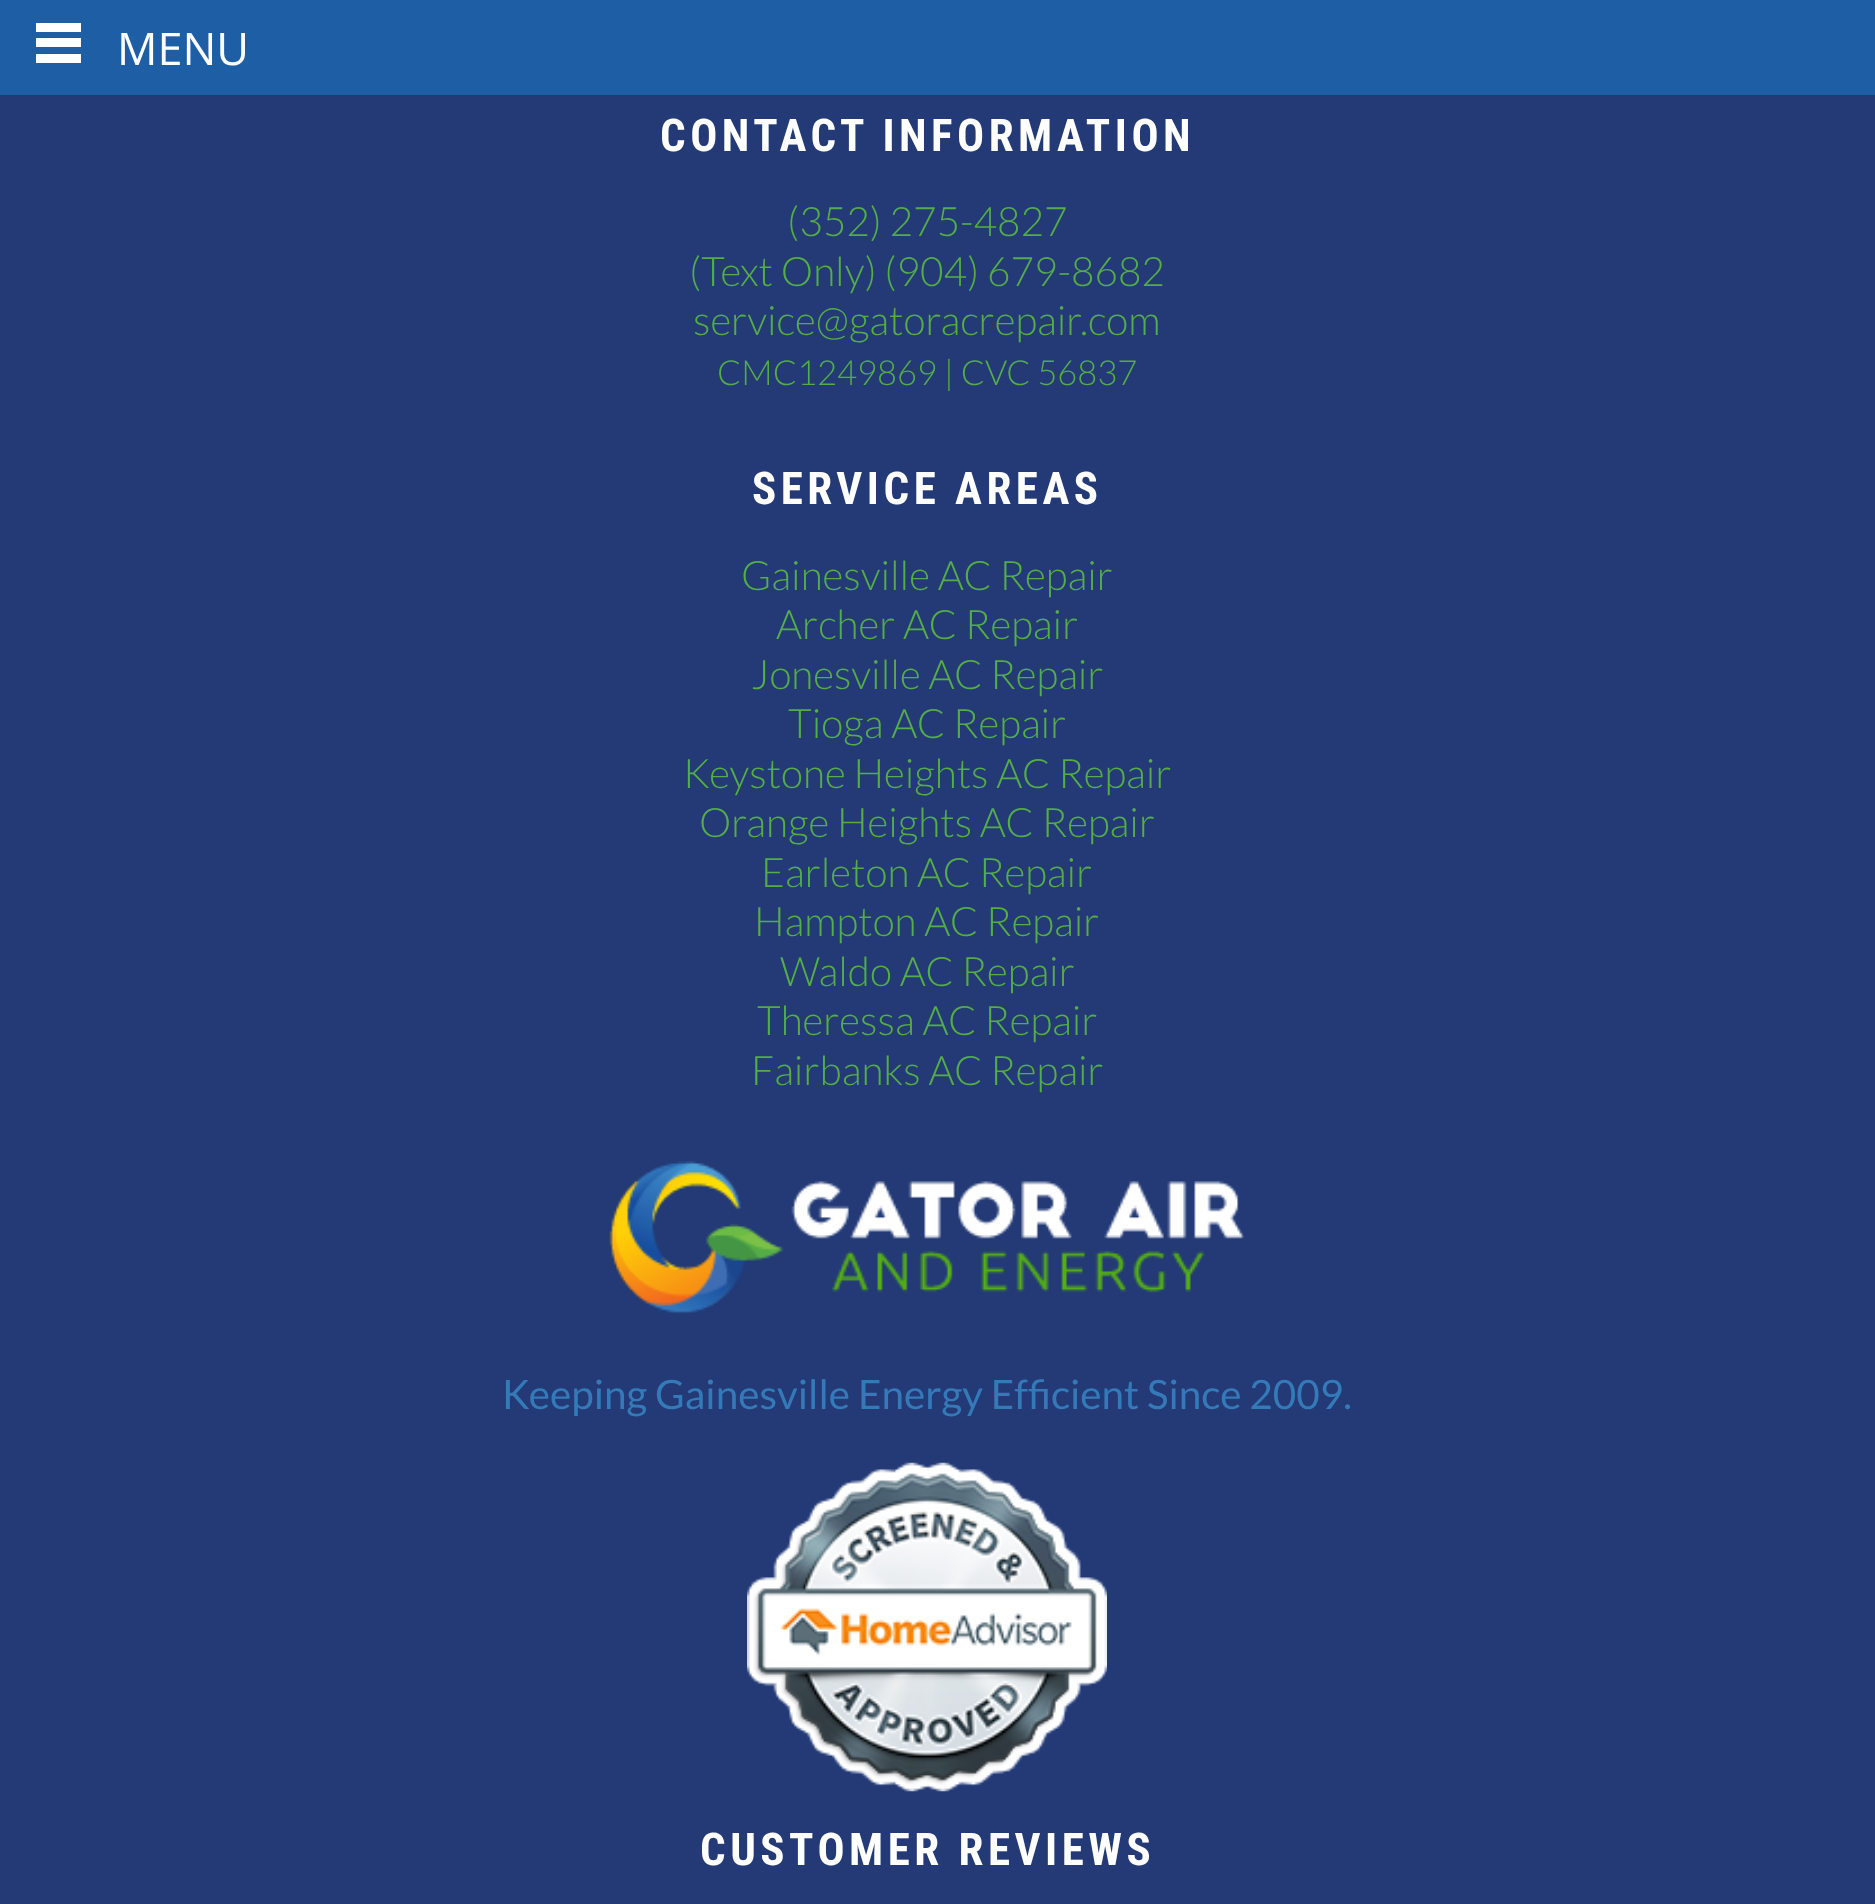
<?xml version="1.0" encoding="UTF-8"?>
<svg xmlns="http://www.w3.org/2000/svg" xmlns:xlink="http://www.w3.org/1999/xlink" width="1875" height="1904">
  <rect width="100%" height="100%" fill="#233a76" />
  <rect width="1875" height="95" fill="#1d5ea4" />
  <rect x="36" y="23" width="45" height="9" fill="#ffffff" />
  <rect x="36" y="38" width="45" height="9" fill="#ffffff" />
  <rect x="36" y="54" width="45" height="9" fill="#ffffff" />
  <image x="609" y="1161" width="636" height="152" xlink:href="image1.png" />
  <image x="747" y="1462" width="360" height="330" xlink:href="image2.png" />
  <text x="117" y="65" style="font-family: Open Sans; font-size: 45px; fill: #ffffff">MENU</text>
  <text x="660" y="151" style="font-family: Roboto Condensed; font-size: 45px; font-weight: bold; letter-spacing: 4.5px; fill: #ffffff">CONTACT INFORMATION</text>
  <text x="787" y="236" style="font-family: Lato; font-size: 40.5px; font-weight: 300; fill: #54ad47">(352) 275-4827</text>
  <text x="689" y="286" style="font-family: Lato; font-size: 40.5px; font-weight: 300; fill: #54ad47">(Text Only) (904) 679-8682</text>
  <text x="693" y="335" style="font-family: Lato; font-size: 40.5px; font-weight: 300; fill: #54ad47">service@gatoracrepair.com</text>
  <text x="717" y="385" style="font-family: Lato; font-size: 34.5px; font-weight: 300; fill: #54ad47">CMC1249869 | CVC 56837</text>
  <text x="752" y="504" style="font-family: Roboto Condensed; font-size: 45px; font-weight: bold; letter-spacing: 4.5px; fill: #ffffff">SERVICE AREAS</text>
  <text x="741" y="590" style="font-family: Lato; font-size: 40.5px; font-weight: 300; fill: #54ad47">Gainesville AC Repair</text>
  <text x="776" y="639" style="font-family: Lato; font-size: 40.5px; font-weight: 300; fill: #54ad47">Archer AC Repair</text>
  <text x="751" y="689" style="font-family: Lato; font-size: 40.5px; font-weight: 300; fill: #54ad47">Jonesville AC Repair</text>
  <text x="788" y="738" style="font-family: Lato; font-size: 40.5px; font-weight: 300; fill: #54ad47">Tioga AC Repair</text>
  <text x="683" y="788" style="font-family: Lato; font-size: 40.5px; font-weight: 300; fill: #54ad47">Keystone Heights AC Repair</text>
  <text x="699" y="837" style="font-family: Lato; font-size: 40.5px; font-weight: 300; fill: #54ad47">Orange Heights AC Repair</text>
  <text x="761" y="887" style="font-family: Lato; font-size: 40.5px; font-weight: 300; fill: #54ad47">Earleton AC Repair</text>
  <text x="754" y="936" style="font-family: Lato; font-size: 40.5px; font-weight: 300; fill: #54ad47">Hampton AC Repair</text>
  <text x="780" y="986" style="font-family: Lato; font-size: 40.5px; font-weight: 300; fill: #54ad47">Waldo AC Repair</text>
  <text x="757" y="1035" style="font-family: Lato; font-size: 40.5px; font-weight: 300; fill: #54ad47">Theressa AC Repair</text>
  <text x="751" y="1085" style="font-family: Lato; font-size: 40.5px; font-weight: 300; fill: #54ad47">Fairbanks AC Repair</text>
  <text x="502" y="1409" style="font-family: Lato; font-size: 40.5px; fill: #357ab8">Keeping Gainesville Energy Efficient Since 2009.</text>
  <text x="700" y="1865" style="font-family: Roboto Condensed; font-size: 45px; font-weight: bold; letter-spacing: 4.5px; fill: #ffffff">CUSTOMER REVIEWS</text>
</svg>
